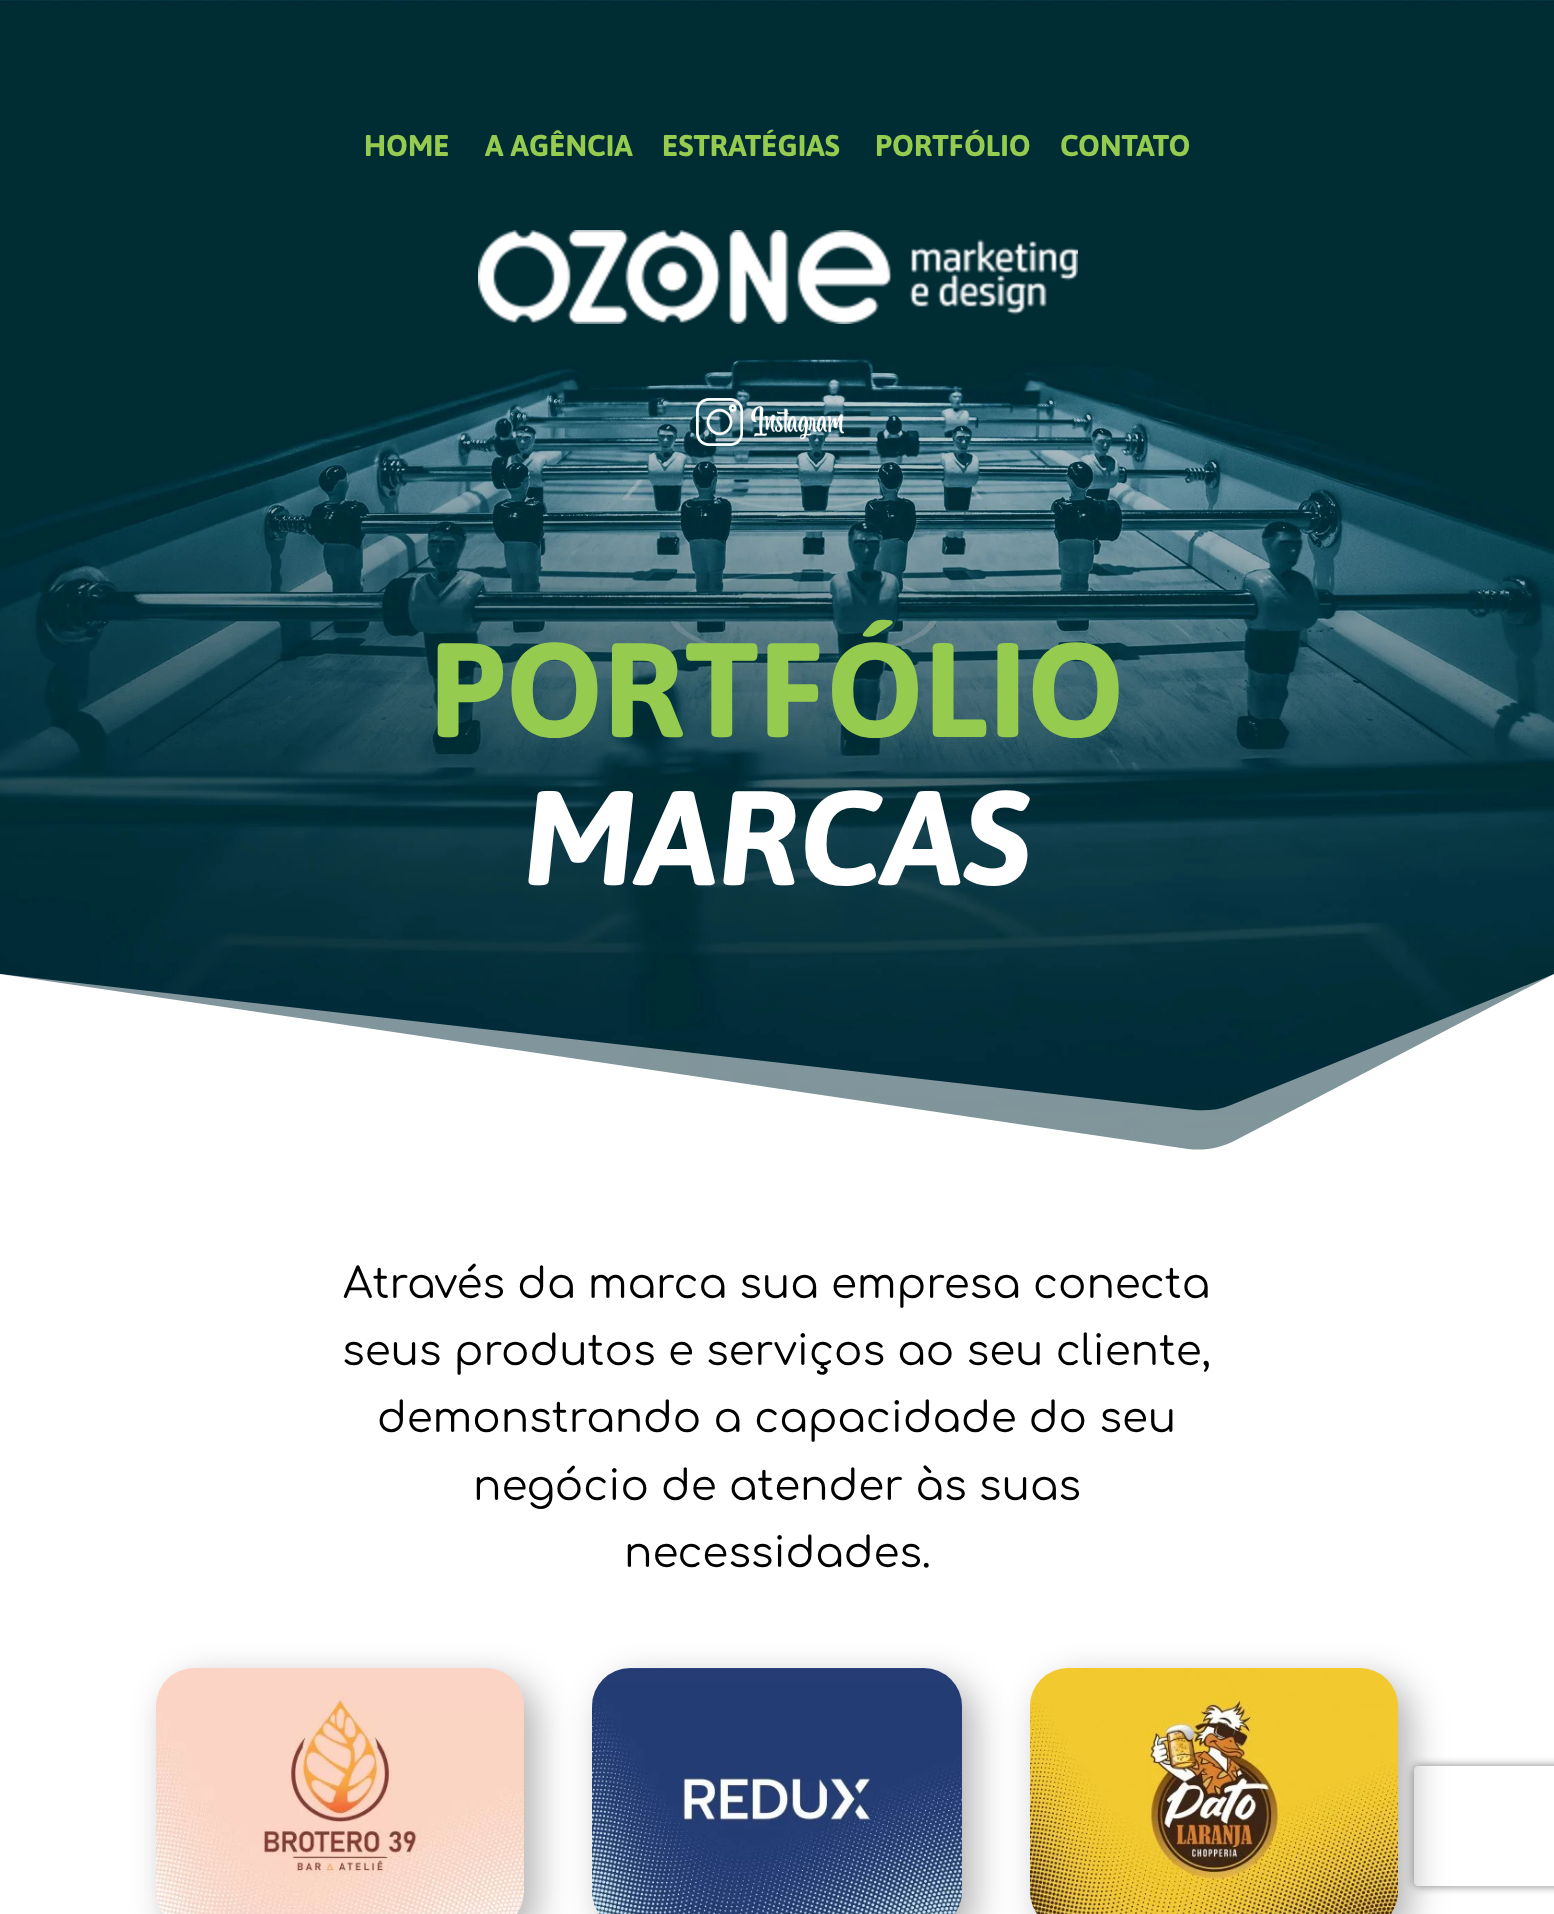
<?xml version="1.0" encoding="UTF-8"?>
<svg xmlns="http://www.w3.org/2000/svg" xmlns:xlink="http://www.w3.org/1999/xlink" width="1554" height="1914">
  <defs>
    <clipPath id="clip1"><path d="M 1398 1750 h 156 v 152 h -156 z m 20 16 h 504 c 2 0 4 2 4 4 v 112 c 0 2 -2 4 -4 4 h -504 c -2 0 -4 -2 -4 -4 v -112 c 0 -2 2 -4 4 -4 z" clip-rule="evenodd" /></clipPath>
  </defs>
  <rect width="100%" height="100%" fill="#ffffff" />
  <image x="0" y="0" width="1554" height="1150" xlink:href="image1.png" />
  <image x="478" y="230" width="600" height="94" xlink:href="image2.png" />
  <image x="696" y="398" width="148" height="48" xlink:href="image3.png" />
  <path d="M 1554 974 l -323 131 c -12 5 -25 6 -37 5 l -1194 -136 v 200 h 1554 z" fill="#ffffff" fill-opacity="0.5" />
  <path d="M 1554 974 l -318 166 c -15 8 -31 11 -48 9 l -1188 -175 v 200 h 1554 z" fill="#ffffff" />
  <rect x="168" y="1680" width="368" height="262" rx="38" fill="#000000" fill-opacity="0.3" filter="blur(18px)" />
  <image x="156" y="1668" width="368" height="246" xlink:href="image4.png" />
  <rect x="604" y="1680" width="370" height="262" rx="38" fill="#000000" fill-opacity="0.3" filter="blur(18px)" />
  <image x="592" y="1668" width="370" height="246" xlink:href="image5.png" />
  <rect x="1042" y="1680" width="368" height="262" rx="38" fill="#000000" fill-opacity="0.3" filter="blur(18px)" />
  <image x="1030" y="1668" width="368" height="246" xlink:href="image6.png" />
  <g clip-path="url(#clip1)">
    <rect x="1414" y="1766" width="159" height="120" rx="4" fill="#808080" filter="blur(5px)" />
  </g>
  <text x="364" y="156" style="font-family: Asap; font-size: 30px; font-weight: bold; fill: #95cb4f">HOME</text>
  <text x="485" y="156" style="font-family: Asap; font-size: 30px; font-weight: bold; fill: #95cb4f">A AGÊNCIA</text>
  <text x="662" y="156" style="font-family: Asap; font-size: 30px; font-weight: bold; fill: #95cb4f">ESTRATÉGIAS</text>
  <text x="875" y="156" style="font-family: Asap; font-size: 30px; font-weight: bold; fill: #95cb4f">PORTFÓLIO</text>
  <text x="1060" y="156" style="font-family: Asap; font-size: 30px; font-weight: bold; fill: #95cb4f">CONTATO</text>
  <text x="429" y="737" style="font-family: Asap; font-size: 134px; font-weight: bold; fill: #95cb4f">PORTFÓLIO</text>
  <text x="523" y="885" style="font-family: Asap; font-size: 134px; font-weight: bold; font-style: italic; fill: #ffffff">MARCAS</text>
  <text x="343" y="1298" style="font-family: Comfortaa; font-size: 42px; fill: #000000">Através da marca sua empresa conecta</text>
  <text x="342" y="1365" style="font-family: Comfortaa; font-size: 42px; fill: #000000">seus produtos e serviços ao seu cliente,</text>
  <text x="377" y="1432" style="font-family: Comfortaa; font-size: 42px; fill: #000000">demonstrando a capacidade do seu</text>
  <text x="473" y="1500" style="font-family: Comfortaa; font-size: 42px; fill: #000000">negócio de atender às suas</text>
  <text x="624" y="1567" style="font-family: Comfortaa; font-size: 42px; fill: #000000">necessidades.</text>
</svg>
